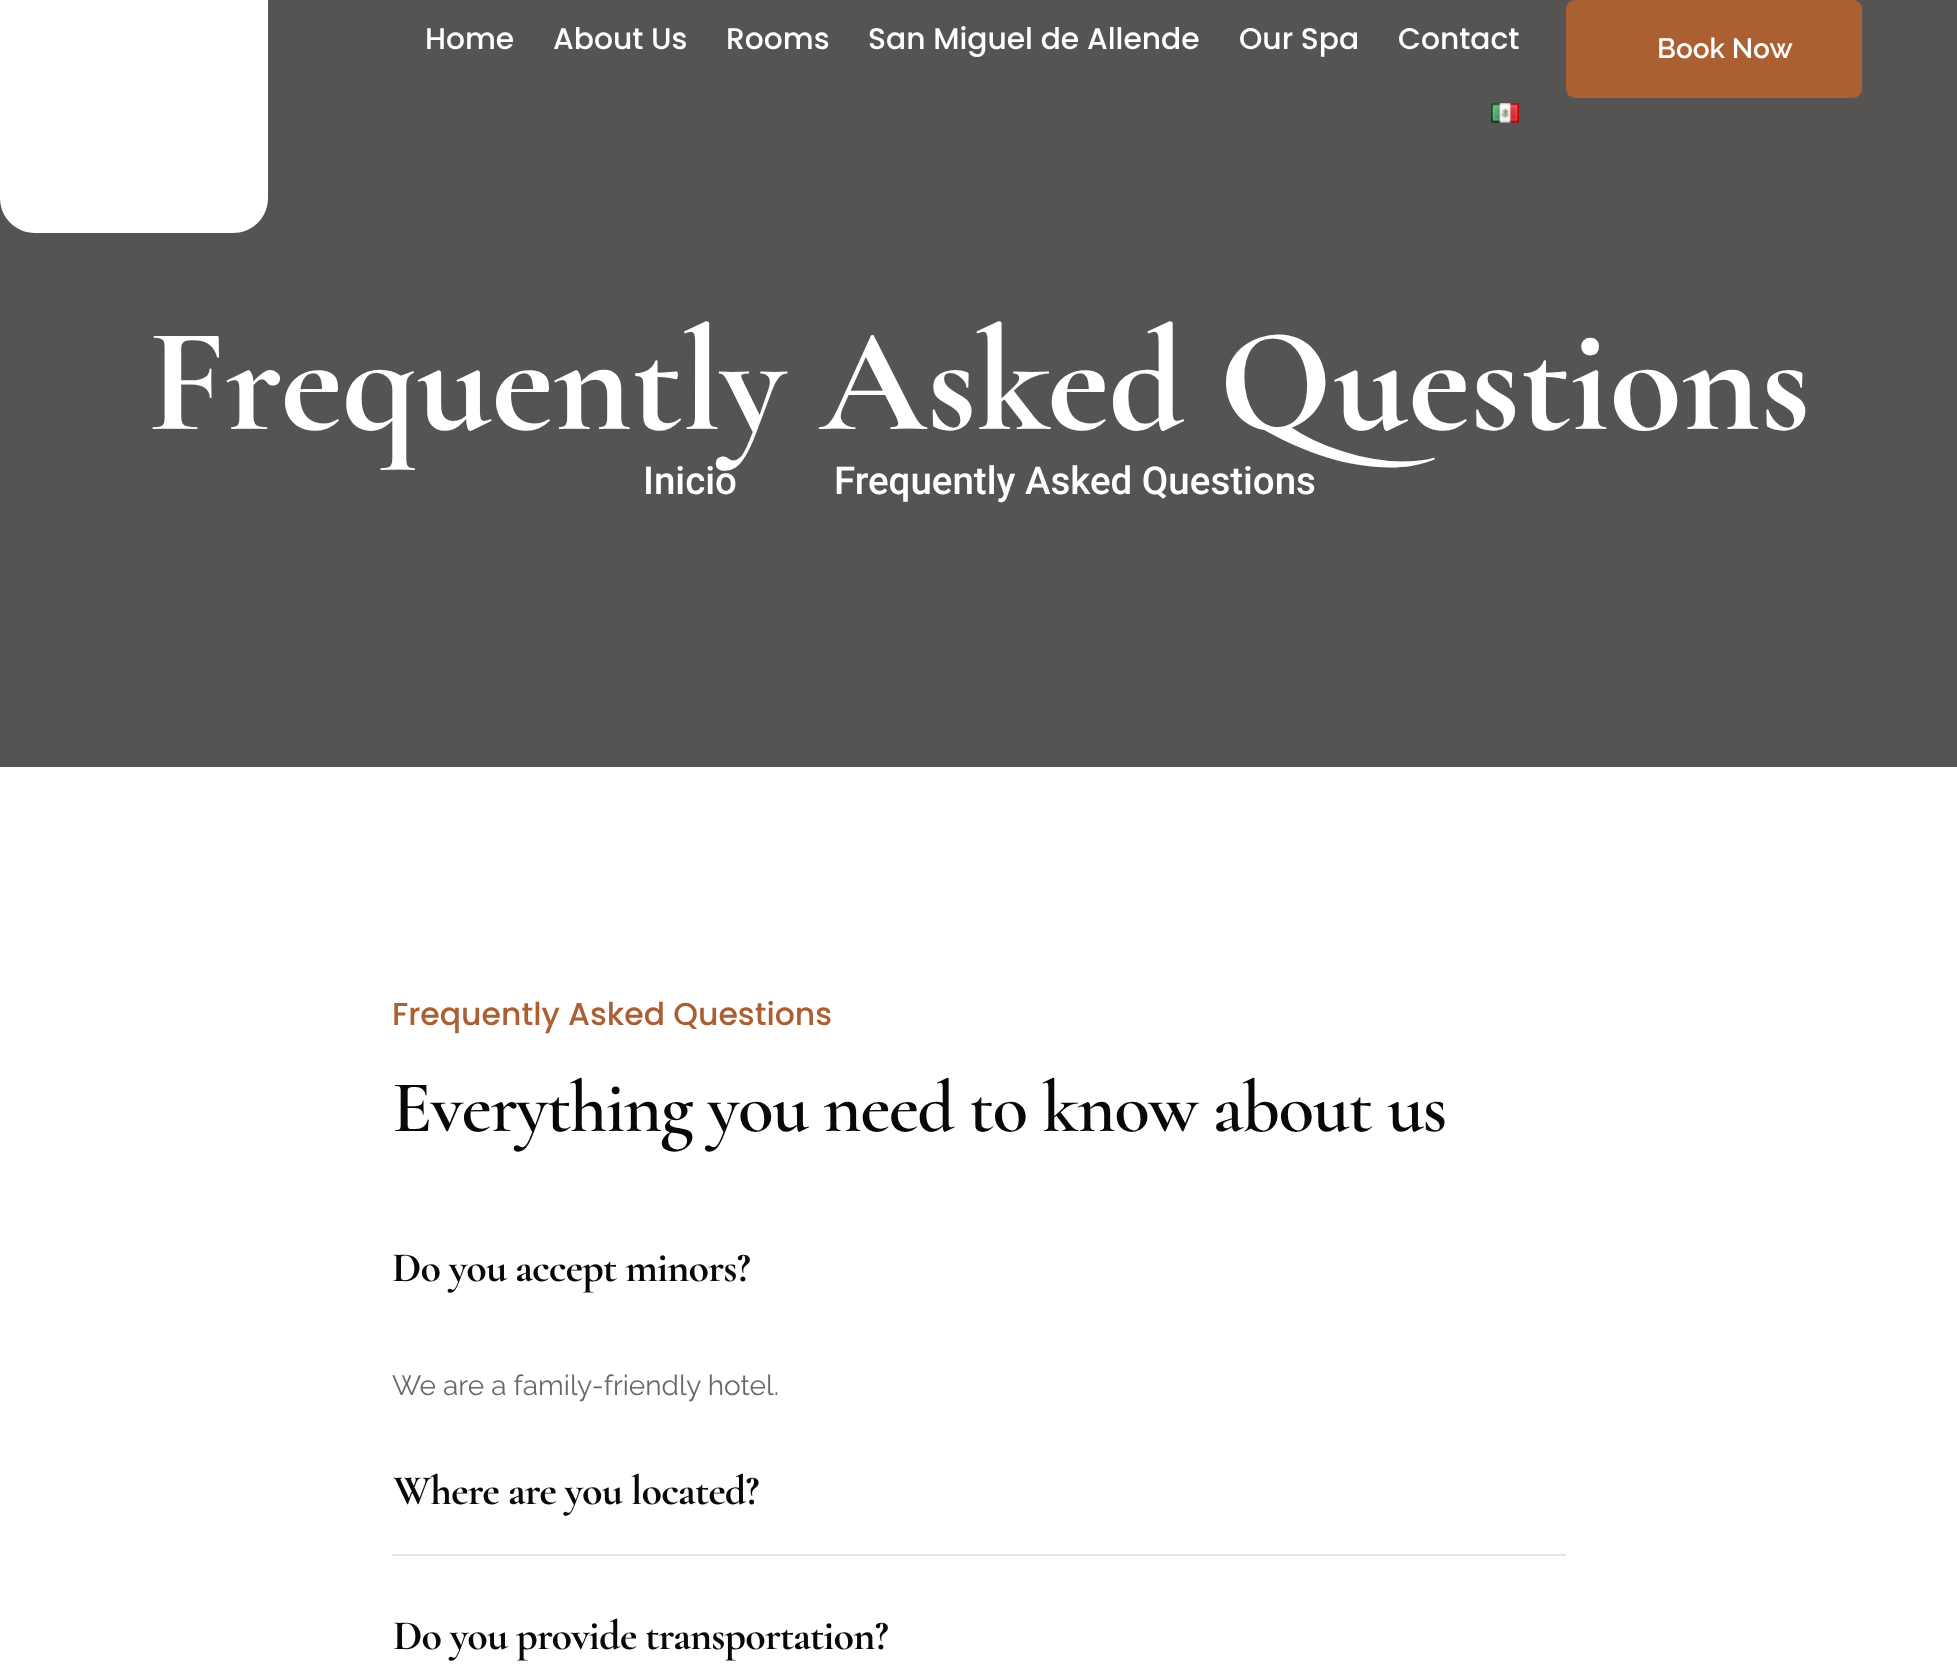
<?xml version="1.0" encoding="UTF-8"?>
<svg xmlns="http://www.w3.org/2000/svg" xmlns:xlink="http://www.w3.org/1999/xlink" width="1957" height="1679">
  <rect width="100%" height="100%" fill="#ffffff" />
  <rect width="1957" height="767" fill="#565453" />
  <path d="M 0 0 h 268 v 198 c 0 19.5 -15.5 35 -35 35 h -198 c -19.5 0 -35 -15.5 -35 -35 z" fill="#ffffff" />
  <image x="1491" y="103" width="28" height="20" xlink:href="image1.png" />
  <rect x="1566" width="296" height="98" rx="9" fill="#ab6034" />
  <rect x="392" y="1554" width="1174" height="2" fill="#e4e4e4" />
  <text x="425" y="49" style="font-family: Poppins; font-size: 29.75px; font-weight: 500; fill: #ffffff">Home</text>
  <text x="553" y="49" style="font-family: Poppins; font-size: 29.75px; font-weight: 500; fill: #ffffff">About Us</text>
  <text x="726" y="49" style="font-family: Poppins; font-size: 29.75px; font-weight: 500; fill: #ffffff">Rooms</text>
  <text x="868" y="49" style="font-family: Poppins; font-size: 29.75px; font-weight: 500; fill: #ffffff">San Miguel de Allende</text>
  <text x="1239" y="49" style="font-family: Poppins; font-size: 29.75px; font-weight: 500; fill: #ffffff">Our Spa</text>
  <text x="1398" y="49" style="font-family: Poppins; font-size: 29.75px; font-weight: 500; fill: #ffffff">Contact</text>
  <text x="1657" y="58" style="font-family: Raleway; font-size: 28px; font-weight: 600; fill: #ffffff">Book Now</text>
  <text x="148" y="429" style="font-family: Cormorant Garamond; font-size: 148.75px; font-weight: bold; fill: #ffffff">Frequently Asked Questions</text>
  <text x="643" y="494" style="font-family: Roboto; font-size: 38.5px; font-weight: 500; fill: #ffffff">Inicio</text>
  <text x="834" y="494" style="font-family: Roboto; font-size: 38.5px; font-weight: 500; fill: #ffffff">Frequently Asked Questions</text>
  <text x="392" y="1025" style="font-family: Poppins; font-size: 31.5px; font-weight: 500; fill: #ab6034">Frequently Asked Questions</text>
  <text x="392" y="1131" style="font-family: Cormorant; font-size: 73.5px; font-weight: 600; letter-spacing: -1.45px; fill: #0a0807">Everything you need to know about us</text>
  <text x="392" y="1281" style="font-family: Cormorant Garamond; font-size: 42px; font-weight: bold; letter-spacing: -0.85px; fill: #0a0807">Do you accept minors?</text>
  <text x="392" y="1395" style="font-family: Raleway; font-size: 28px; fill: #696969">We are a family-friendly hotel.</text>
  <text x="393" y="1504" style="font-family: Cormorant Garamond; font-size: 42px; font-weight: bold; letter-spacing: -0.85px; fill: #0a0807">Where are you located?</text>
  <text x="393" y="1649" style="font-family: Cormorant Garamond; font-size: 42px; font-weight: bold; letter-spacing: -0.85px; fill: #0a0807">Do you provide transportation?</text>
</svg>
